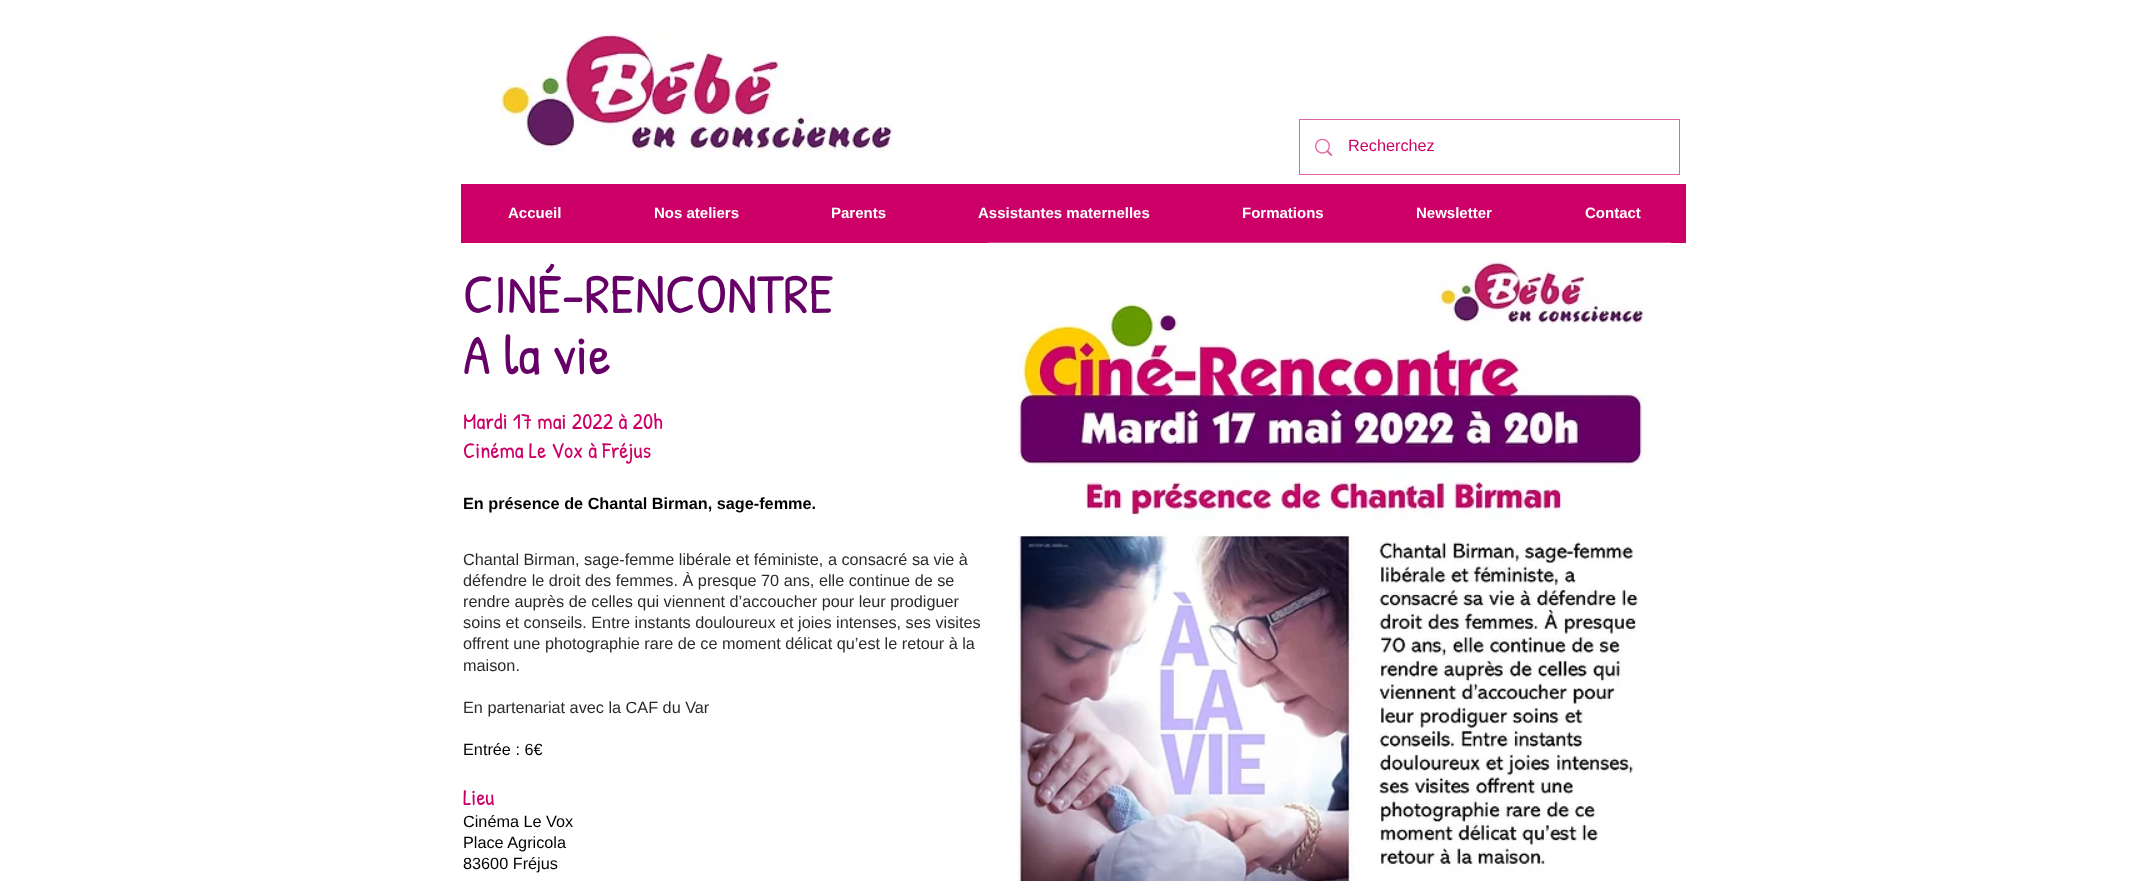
<?xml version="1.0" encoding="UTF-8"?>
<svg xmlns="http://www.w3.org/2000/svg" xmlns:xlink="http://www.w3.org/1999/xlink" width="2150" height="881">
  <rect width="100%" height="100%" fill="#ffffff" />
  <image x="500" y="31" width="392" height="121" xlink:href="image1.png" />
  <rect x="1299.5" y="119.5" width="380" height="55" fill="none" stroke="#e066a3" />
  <image x="1315" y="139" width="18" height="17" xlink:href="image2.png" />
  <rect x="461" y="184" width="1225" height="59" fill="#cc0066" />
  <image x="987" y="242" width="684" height="639" xlink:href="image3.png" />
  <text x="1348" y="151" style="font-family: Liberation Sans; font-size: 16.25px; fill: #cc0066">Recherchez</text>
  <text x="508" y="218" style="font-family: Liberation Sans; font-size: 15px; font-weight: bold; fill: #ffffff">Accueil</text>
  <text x="654" y="218" style="font-family: Liberation Sans; font-size: 15px; font-weight: bold; fill: #ffffff">Nos ateliers</text>
  <text x="831" y="218" style="font-family: Liberation Sans; font-size: 15px; font-weight: bold; fill: #ffffff">Parents</text>
  <text x="978" y="218" style="font-family: Liberation Sans; font-size: 15px; font-weight: bold; fill: #ffffff">Assistantes maternelles</text>
  <text x="1242" y="218" style="font-family: Liberation Sans; font-size: 15px; font-weight: bold; fill: #ffffff">Formations</text>
  <text x="1416" y="218" style="font-family: Liberation Sans; font-size: 15px; font-weight: bold; fill: #ffffff">Newsletter</text>
  <text x="1585" y="218" style="font-family: Liberation Sans; font-size: 15px; font-weight: bold; fill: #ffffff">Contact</text>
  <text x="463" y="313" style="font-family: Patrick Hand; font-size: 56.25px; fill: #660066">CINÉ-RENCONTRE</text>
  <text x="463" y="374" style="font-family: Patrick Hand; font-size: 56.25px; fill: #660066">A la vie</text>
  <text x="463" y="429" style="font-family: Patrick Hand; font-size: 22.5px; fill: #cc0066">Mardi 17 mai 2022 à 20h</text>
  <text x="463" y="458" style="font-family: Patrick Hand; font-size: 22.5px; fill: #cc0066">Cinéma Le Vox à Fréjus</text>
  <text x="463" y="509" style="font-family: Liberation Sans; font-size: 16.25px; font-weight: bold; fill: #000000">En présence de Chantal Birman, sage-femme.</text>
  <text x="463" y="565" style="font-family: Liberation Sans; font-size: 16.25px; fill: #2a2a2a">Chantal Birman, sage-femme libérale et féministe, a consacré sa vie à</text>
  <text x="463" y="586" style="font-family: Liberation Sans; font-size: 16.25px; fill: #2a2a2a">défendre le droit des femmes. À presque 70 ans, elle continue de se</text>
  <text x="463" y="607" style="font-family: Liberation Sans; font-size: 16.25px; fill: #2a2a2a">rendre auprès de celles qui viennent d’accoucher pour leur prodiguer</text>
  <text x="463" y="628" style="font-family: Liberation Sans; font-size: 16.25px; fill: #2a2a2a">soins et conseils. Entre instants douloureux et joies intenses, ses visites</text>
  <text x="463" y="649" style="font-family: Liberation Sans; font-size: 16.25px; fill: #2a2a2a">offrent une photographie rare de ce moment délicat qu’est le retour à la</text>
  <text x="463" y="671" style="font-family: Liberation Sans; font-size: 16.25px; fill: #2a2a2a">maison.</text>
  <text x="463" y="713" style="font-family: Liberation Sans; font-size: 16.25px; fill: #2a2a2a">En partenariat avec la CAF du Var</text>
  <text x="463" y="755" style="font-family: Liberation Sans; font-size: 16.25px; fill: #000000">Entrée : 6€</text>
  <text x="463" y="805" style="font-family: Patrick Hand; font-size: 22.5px; fill: #cc0066">Lieu</text>
  <text x="463" y="827" style="font-family: Liberation Sans; font-size: 16.25px; fill: #000000">Cinéma Le Vox</text>
  <text x="463" y="848" style="font-family: Liberation Sans; font-size: 16.25px; fill: #000000">Place Agricola</text>
  <text x="463" y="869" style="font-family: Liberation Sans; font-size: 16.25px; fill: #000000">83600 Fréjus</text>
</svg>
